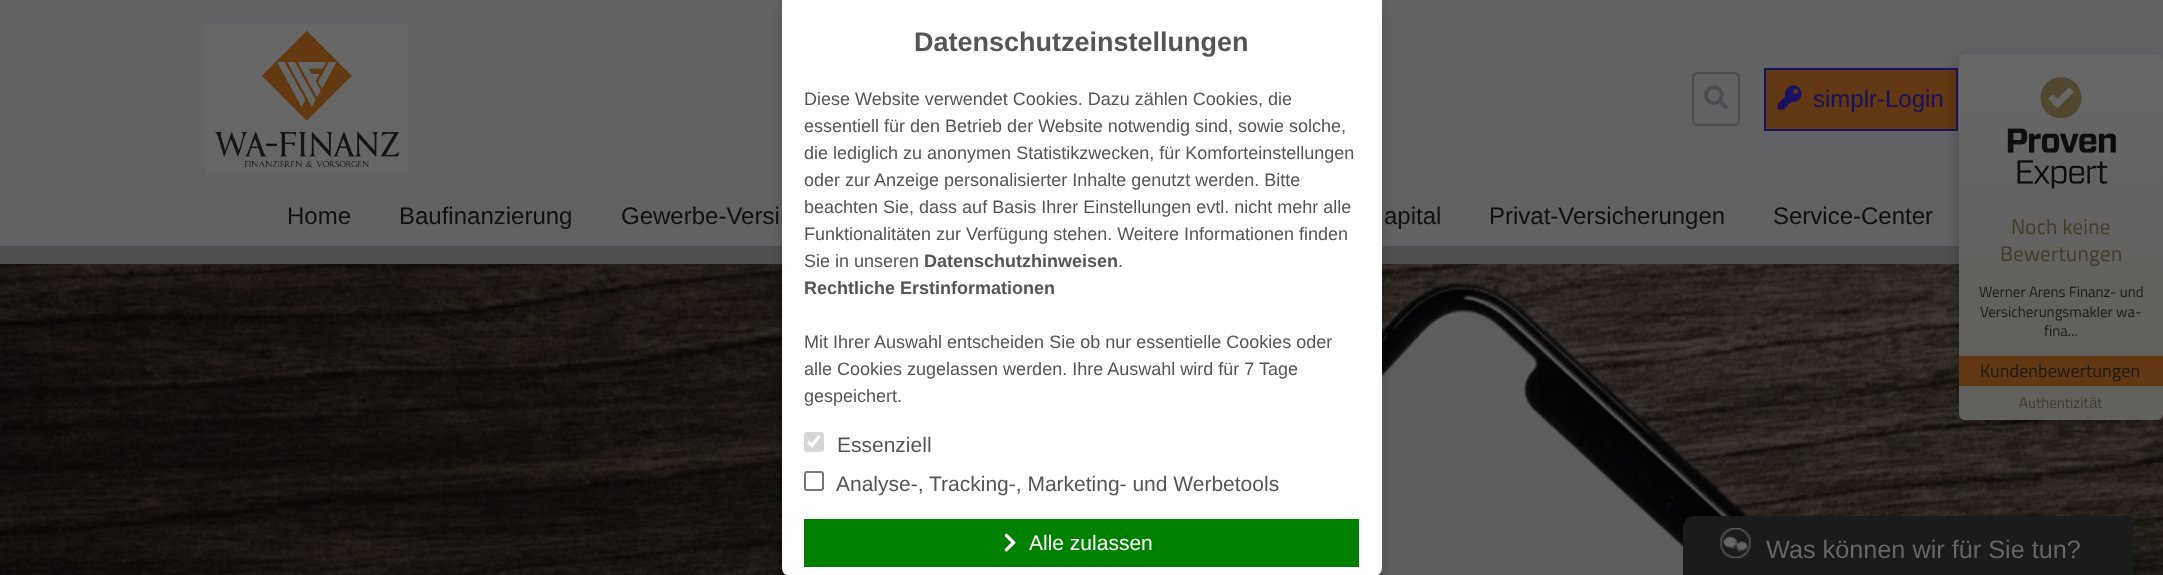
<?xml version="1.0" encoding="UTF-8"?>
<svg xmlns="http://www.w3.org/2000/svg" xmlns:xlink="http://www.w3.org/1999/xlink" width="2163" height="575">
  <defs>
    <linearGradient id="g1" gradientUnits="userSpaceOnUse" x1="2061" y1="420" x2="2061" y2="54"><stop offset="0.37" stop-color="#62615e" /><stop offset="0.9" stop-color="#666666" /></linearGradient>
  </defs>
  <rect width="100%" height="100%" fill="#606263" />
  <rect y="246" width="1959" height="18" fill="#505050" />
  <image x="0" y="264" width="2163" height="311" xlink:href="image6.png" />
  <rect x="782" y="6" width="600" height="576" rx="8" fill="#000000" fill-opacity="0.2" filter="blur(6px)" />
  <path d="M 782 0 h 600 v 568 c 0 4.5 -3.5 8 -8 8 h -584 c -4.5 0 -8 -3.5 -8 -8 z" fill="#ffffff" />
  <rect x="804" y="432" width="20" height="20" rx="3" fill="#d6d6d6" />
  <path d="M 808 442 l 4 3.5 l 7.5 -9.5" fill="none" stroke="#ffffff" stroke-width="3.1" />
  <rect x="805" y="472" width="18" height="18" rx="2" fill="none" stroke="#767676" stroke-width="2" />
  <rect x="804" y="519" width="555" height="48" fill="#008000" />
  <image x="1004" y="533" width="12" height="19" xlink:href="image1.png" />
  <image x="205" y="24" width="203" height="150" xlink:href="image2.png" />
  <rect x="1693" y="73" width="46" height="52" rx="5" fill="none" stroke="#4a4e52" stroke-width="2" />
  <image x="1704" y="85" width="24" height="25" xlink:href="image3.png" />
  <rect x="1765" y="69" width="192" height="61" fill="#613812" stroke="#191261" stroke-width="2" />
  <image x="1777" y="85" width="25" height="25" xlink:href="image4.png" />
  <rect x="1959" y="60" width="198" height="360" rx="3" fill="#000000" fill-opacity="0.25" filter="blur(7.5px)" />
  <rect x="1959" y="54" width="204" height="366" rx="6" fill="url(#g1)" />
  <image x="2007" y="77" width="109" height="112" xlink:href="image5.png" />
  <rect x="1959" y="356" width="204" height="30" fill="#613812" />
  <path d="M 1695 516 h 426 c 6.5 0 12 5.5 12 12 v 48 h -450 v -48 c 0 -6.5 5.5 -12 12 -12 z" fill="#1b1b1b" />
  <image x="1720" y="528" width="31" height="30" xlink:href="image7.png" />
  <text x="914" y="51" style="font-family: Liberation Sans; font-size: 27px; font-weight: bold; fill: #555555">Datenschutzeinstellungen</text>
  <text x="804" y="105" style="font-family: Liberation Sans; font-size: 18px; fill: #555555">Diese Website verwendet Cookies. Dazu zählen Cookies, die</text>
  <text x="804" y="132" style="font-family: Liberation Sans; font-size: 18px; fill: #555555">essentiell für den Betrieb der Website notwendig sind, sowie solche,</text>
  <text x="804" y="159" style="font-family: Liberation Sans; font-size: 18px; fill: #555555">die lediglich zu anonymen Statistikzwecken, für Komforteinstellungen</text>
  <text x="804" y="186" style="font-family: Liberation Sans; font-size: 18px; fill: #555555">oder zur Anzeige personalisierter Inhalte genutzt werden. Bitte</text>
  <text x="804" y="213" style="font-family: Liberation Sans; font-size: 18px; fill: #555555">beachten Sie, dass auf Basis Ihrer Einstellungen evtl. nicht mehr alle</text>
  <text x="804" y="240" style="font-family: Liberation Sans; font-size: 18px; fill: #555555">Funktionalitäten zur Verfügung stehen. Weitere Informationen finden</text>
  <text x="804" y="267" style="font-family: Liberation Sans; font-size: 18px; fill: #555555">Sie in unseren</text>
  <text x="924" y="267" style="font-family: Liberation Sans; font-size: 18px; font-weight: bold; fill: #555555">Datenschutzhinweisen</text>
  <text x="1118" y="267" style="font-family: Liberation Sans; font-size: 18px; fill: #555555">.</text>
  <text x="804" y="294" style="font-family: Liberation Sans; font-size: 18px; font-weight: bold; fill: #555555">Rechtliche Erstinformationen</text>
  <text x="804" y="348" style="font-family: Liberation Sans; font-size: 18px; fill: #555555">Mit Ihrer Auswahl entscheiden Sie ob nur essentielle Cookies oder</text>
  <text x="804" y="375" style="font-family: Liberation Sans; font-size: 18px; fill: #555555">alle Cookies zugelassen werden. Ihre Auswahl wird für 7 Tage</text>
  <text x="804" y="402" style="font-family: Liberation Sans; font-size: 18px; fill: #555555">gespeichert.</text>
  <text x="837" y="452" style="font-family: Liberation Sans; font-size: 21px; fill: #555555">Essenziell</text>
  <text x="836" y="491" style="font-family: Liberation Sans; font-size: 21px; fill: #555555">Analyse-, Tracking-, Marketing- und Werbetools</text>
  <text x="1029" y="550" style="font-family: Liberation Sans; font-size: 21px; fill: #ffffff">Alle zulassen</text>
  <text x="1813" y="107" style="font-family: Liberation Sans; font-size: 24px; fill: #191261">simplr-Login</text>
  <text x="287" y="224" style="font-family: Liberation Sans; font-size: 24px; fill: #0e1013">Home</text>
  <text x="399" y="224" style="font-family: Liberation Sans; font-size: 24px; fill: #0e1013">Baufinanzierung</text>
  <text x="621" y="224" style="font-family: Liberation Sans; font-size: 24px; fill: #0e1013">Gewerbe-Versi</text>
  <text x="1384" y="224" style="font-family: Liberation Sans; font-size: 24px; fill: #0e1013">apital</text>
  <text x="1489" y="224" style="font-family: Liberation Sans; font-size: 24px; fill: #0e1013">Privat-Versicherungen</text>
  <text x="1773" y="224" style="font-family: Liberation Sans; font-size: 24px; fill: #0e1013">Service-Center</text>
  <text x="2011" y="234" style="font-family: Titillium Web; font-size: 21px; letter-spacing: 0.25px; fill: #433c28">Noch keine</text>
  <text x="2000" y="261" style="font-family: Titillium Web; font-size: 21px; letter-spacing: 0.25px; fill: #433c28">Bewertungen</text>
  <text x="1979" y="297" style="font-family: Titillium Web; font-size: 15px; fill: #1b1b1b">Werner Arens Finanz- und</text>
  <text x="1980" y="317" style="font-family: Titillium Web; font-size: 15px; fill: #1b1b1b">Versicherungsmakler wa-</text>
  <text x="2044" y="336" style="font-family: Titillium Web; font-size: 15px; fill: #1b1b1b">fina...</text>
  <text x="1980" y="377" style="font-family: Titillium Web; font-size: 18px; letter-spacing: 0.1px; fill: #1b1b1b">Kundenbewertungen</text>
  <text x="2019" y="408" style="font-family: Titillium Web; font-size: 15px; fill: #433c28">Authentizit</text>
  <text x="2089" y="408" style="font-family: Liberation Sans; font-size: 15px; fill: #433c28">ä</text>
  <text x="2097" y="408" style="font-family: Titillium Web; font-size: 15px; fill: #433c28">t</text>
  <text x="1766" y="558" style="font-family: Liberation Sans; font-size: 25.25px; fill: #666666">Was können wir für Sie tun?</text>
</svg>
